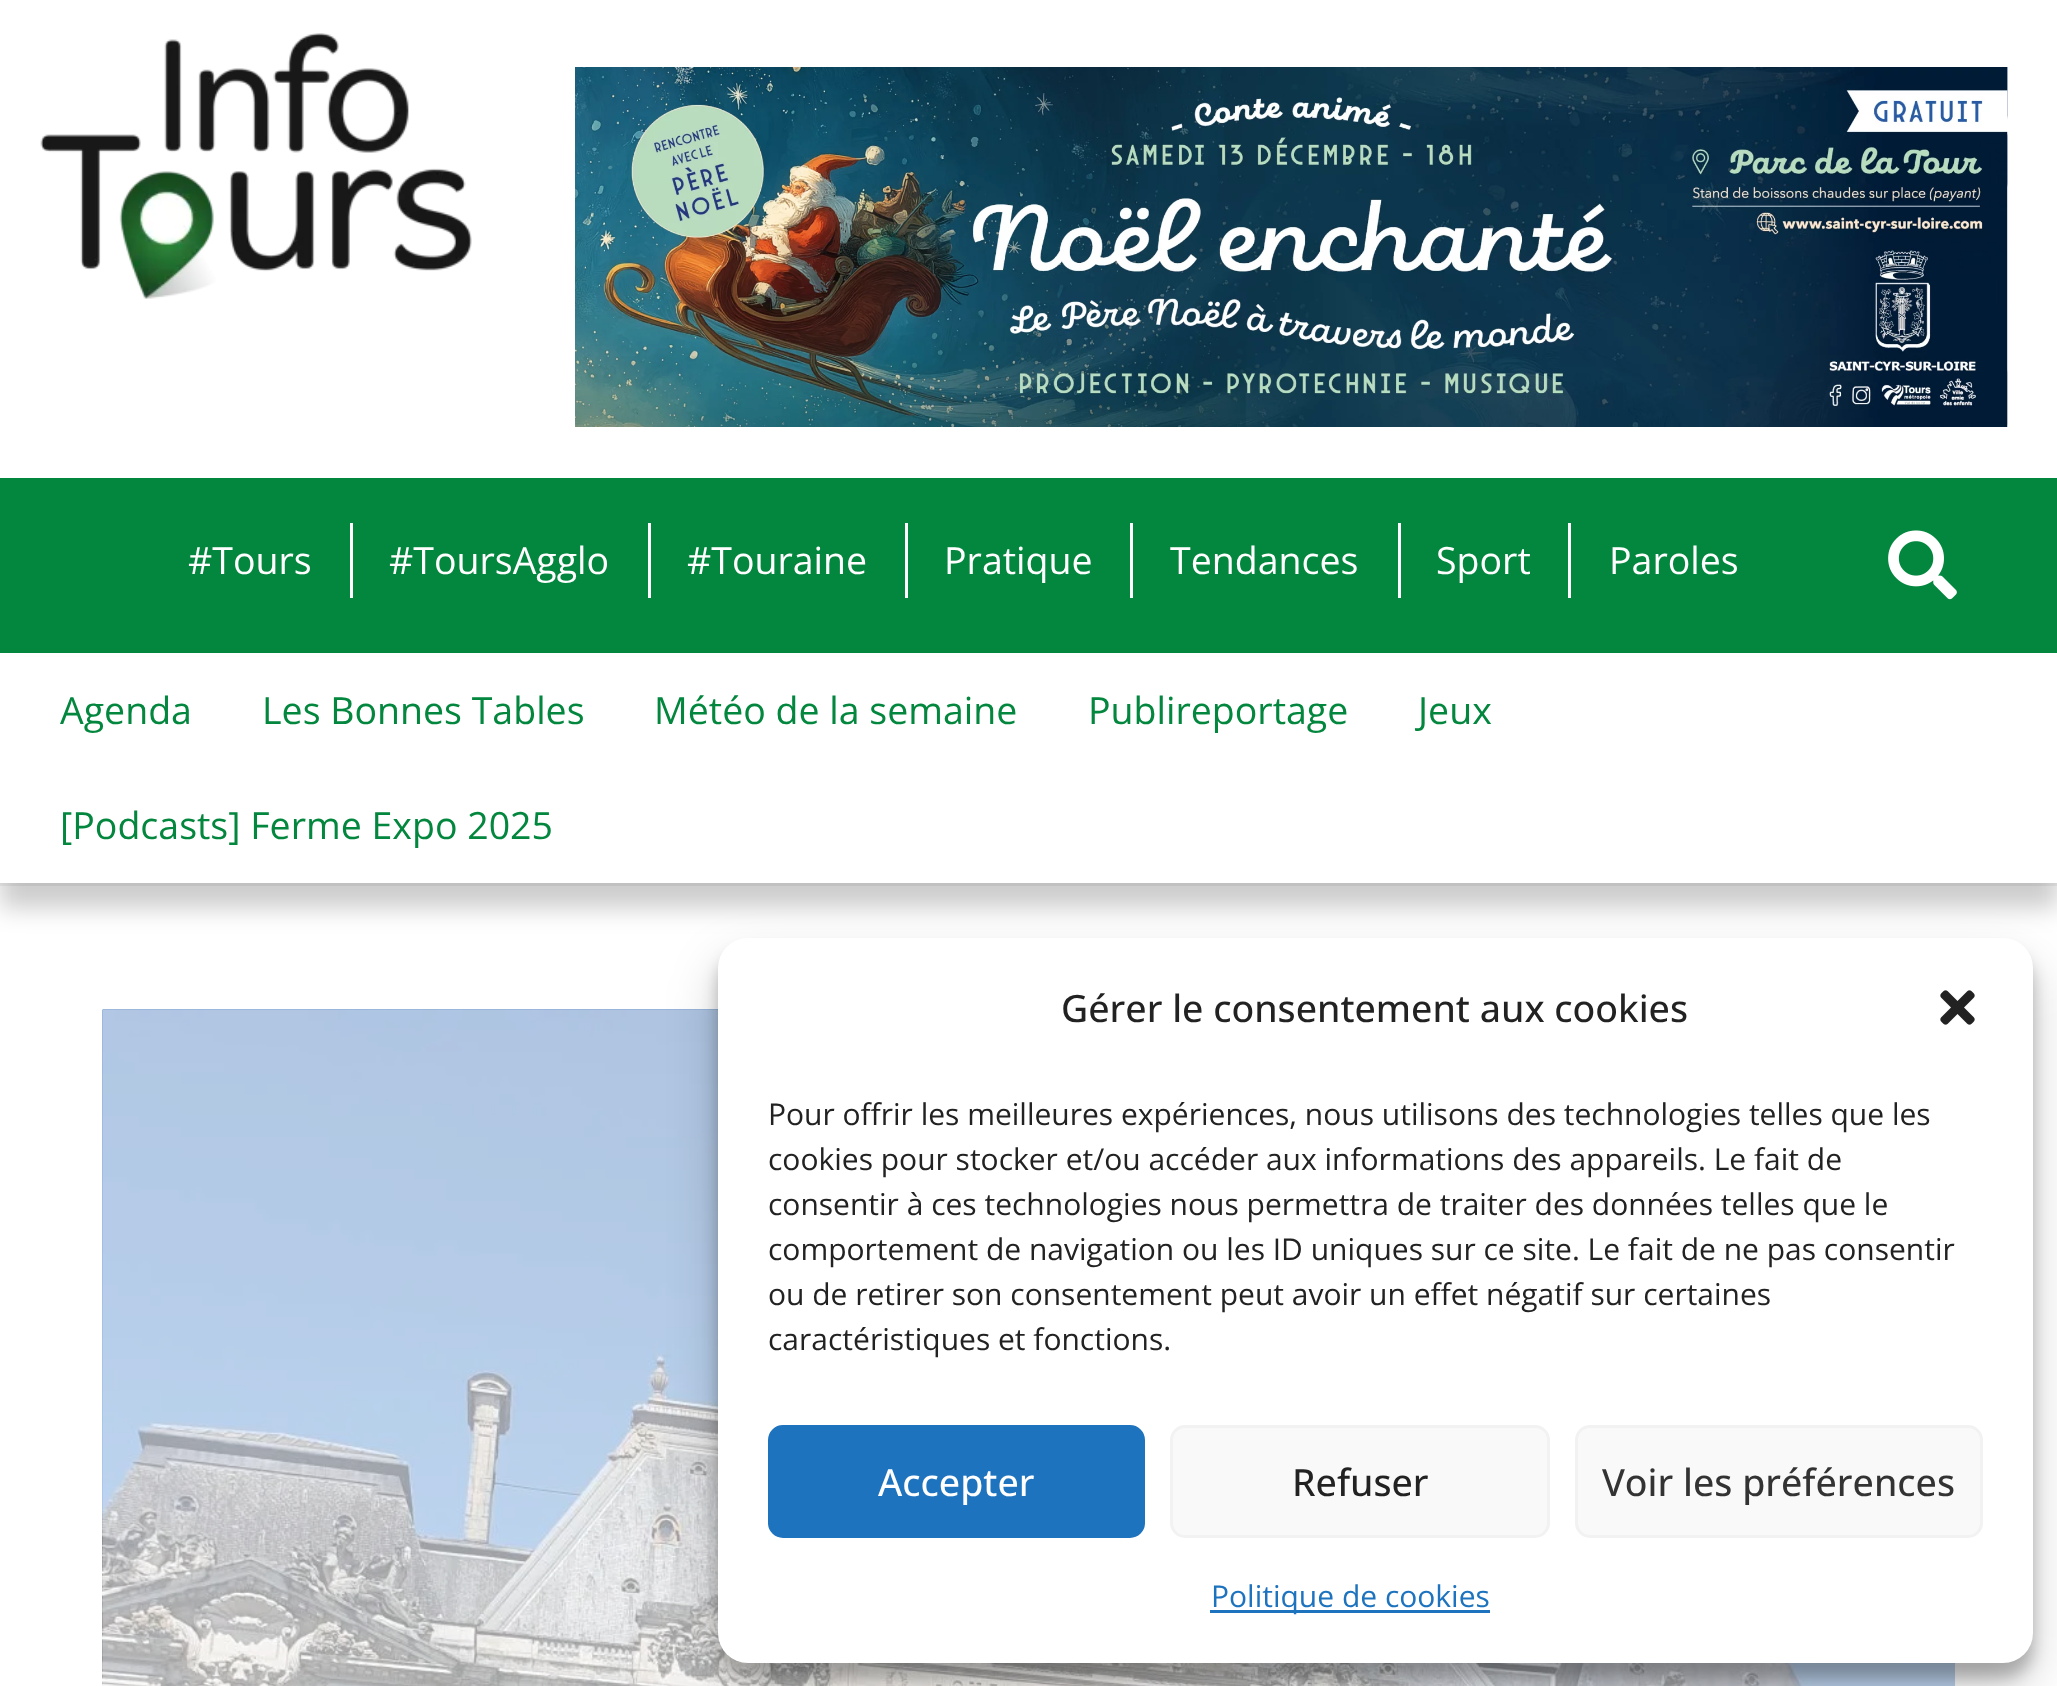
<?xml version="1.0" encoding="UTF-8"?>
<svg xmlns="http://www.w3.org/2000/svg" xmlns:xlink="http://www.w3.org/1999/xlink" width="2057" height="1686">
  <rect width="100%" height="100%" fill="#ffffff" />
  <rect y="883" width="2057" height="3" fill="#f1f1f1" />
  <image x="40" y="33" width="432" height="266" xlink:href="image1.png" />
  <image x="575" y="67" width="1433" height="360" xlink:href="image2.png" />
  <image x="2007" y="67" width="1" height="360" xlink:href="image3.png" />
  <rect y="478" width="2057" height="175" fill="#03863d" />
  <rect x="350" y="523" width="3" height="75" fill="#ffffff" />
  <rect x="648" y="523" width="3" height="75" fill="#ffffff" />
  <rect x="905" y="523" width="3" height="75" fill="#ffffff" />
  <rect x="1130" y="523" width="3" height="75" fill="#ffffff" />
  <rect x="1398" y="523" width="3" height="75" fill="#ffffff" />
  <rect x="1568" y="523" width="3" height="75" fill="#ffffff" />
  <image x="1888" y="530" width="69" height="70" xlink:href="image4.png" />
  <rect y="678" width="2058" height="230" fill="#000000" fill-opacity="0.2" filter="blur(12.5px)" />
  <rect y="657" width="2057" height="226" fill="#ffffff" />
  <image x="102" y="1009" width="1853" height="677" xlink:href="image5.png" />
  <rect x="718" y="953" width="1315" height="725" rx="30" fill="#000000" fill-opacity="0.23" filter="blur(7.5px)" />
  <rect x="718" y="963" width="1315" height="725" rx="30" fill="#000000" fill-opacity="0.19" filter="blur(25px)" />
  <rect x="718" y="938" width="1315" height="725" rx="30" fill="#ffffff" />
  <image x="1940" y="990" width="35" height="35" xlink:href="image6.png" />
  <rect x="769.5" y="1426.5" width="374" height="110" rx="13.5" fill="#1e73be" stroke="#1e73be" stroke-width="3" />
  <rect x="1171.5" y="1426.5" width="377" height="110" rx="13.5" fill="#f9f9f9" stroke="#f2f2f2" stroke-width="3" />
  <rect x="1576.5" y="1426.5" width="405" height="110" rx="13.5" fill="#f9f9f9" stroke="#f2f2f2" stroke-width="3" />
  <rect x="1210" y="1610" width="280" height="3" fill="#1e73be" />
  <text x="188" y="574" style="font-family: Open Sans; font-size: 37.5px; fill: #ffffff">#Tours</text>
  <text x="389" y="574" style="font-family: Open Sans; font-size: 37.5px; fill: #ffffff">#ToursAgglo</text>
  <text x="687" y="574" style="font-family: Open Sans; font-size: 37.5px; fill: #ffffff">#Touraine</text>
  <text x="944" y="574" style="font-family: Open Sans; font-size: 37.5px; fill: #ffffff">Pratique</text>
  <text x="1170" y="574" style="font-family: Open Sans; font-size: 37.5px; fill: #ffffff">Tendances</text>
  <text x="1436" y="574" style="font-family: Open Sans; font-size: 37.5px; fill: #ffffff">Sport</text>
  <text x="1609" y="574" style="font-family: Open Sans; font-size: 37.5px; fill: #ffffff">Paroles</text>
  <text x="60" y="724" style="font-family: Open Sans; font-size: 37.5px; fill: #03863d">Agenda</text>
  <text x="262" y="724" style="font-family: Open Sans; font-size: 37.5px; fill: #03863d">Les Bonnes Tables</text>
  <text x="654" y="724" style="font-family: Open Sans; font-size: 37.5px; fill: #03863d">Météo de la semaine</text>
  <text x="1088" y="724" style="font-family: Open Sans; font-size: 37.5px; fill: #03863d">Publireportage</text>
  <text x="1418" y="724" style="font-family: Open Sans; font-size: 37.5px; fill: #03863d">Jeux</text>
  <text x="60" y="839" style="font-family: Open Sans; font-size: 37.5px; fill: #03863d">[Podcasts] Ferme Expo 2025</text>
  <text x="1061" y="1022" style="font-family: Open Sans; font-size: 37.5px; font-weight: 500; fill: #222222">Gérer le consentement aux cookies</text>
  <text x="768" y="1125" style="font-family: Open Sans; font-size: 30px; fill: #222222">Pour offrir les meilleures expériences, nous utilisons des technologies telles que les</text>
  <text x="768" y="1170" style="font-family: Open Sans; font-size: 30px; fill: #222222">cookies pour stocker et/ou accéder aux informations des appareils. Le fait de</text>
  <text x="768" y="1215" style="font-family: Open Sans; font-size: 30px; fill: #222222">consentir à ces technologies nous permettra de traiter des données telles que le</text>
  <text x="768" y="1260" style="font-family: Open Sans; font-size: 30px; fill: #222222">comportement de navigation ou les ID uniques sur ce site. Le fait de ne pas consentir</text>
  <text x="768" y="1305" style="font-family: Open Sans; font-size: 30px; fill: #222222">ou de retirer son consentement peut avoir un effet négatif sur certaines</text>
  <text x="768" y="1350" style="font-family: Open Sans; font-size: 30px; fill: #222222">caractéristiques et fonctions.</text>
  <text x="878" y="1496" style="font-family: Open Sans; font-size: 37.5px; font-weight: 500; fill: #ffffff">Accepter</text>
  <text x="1292" y="1496" style="font-family: Open Sans; font-size: 37.5px; font-weight: 500; fill: #222222">Refuser</text>
  <text x="1602" y="1496" style="font-family: Open Sans; font-size: 37.5px; font-weight: 500; fill: #333333">Voir les préférences</text>
  <text x="1211" y="1607" style="font-family: Open Sans; font-size: 30px; fill: #1e73be">Politique de cookies</text>
</svg>
